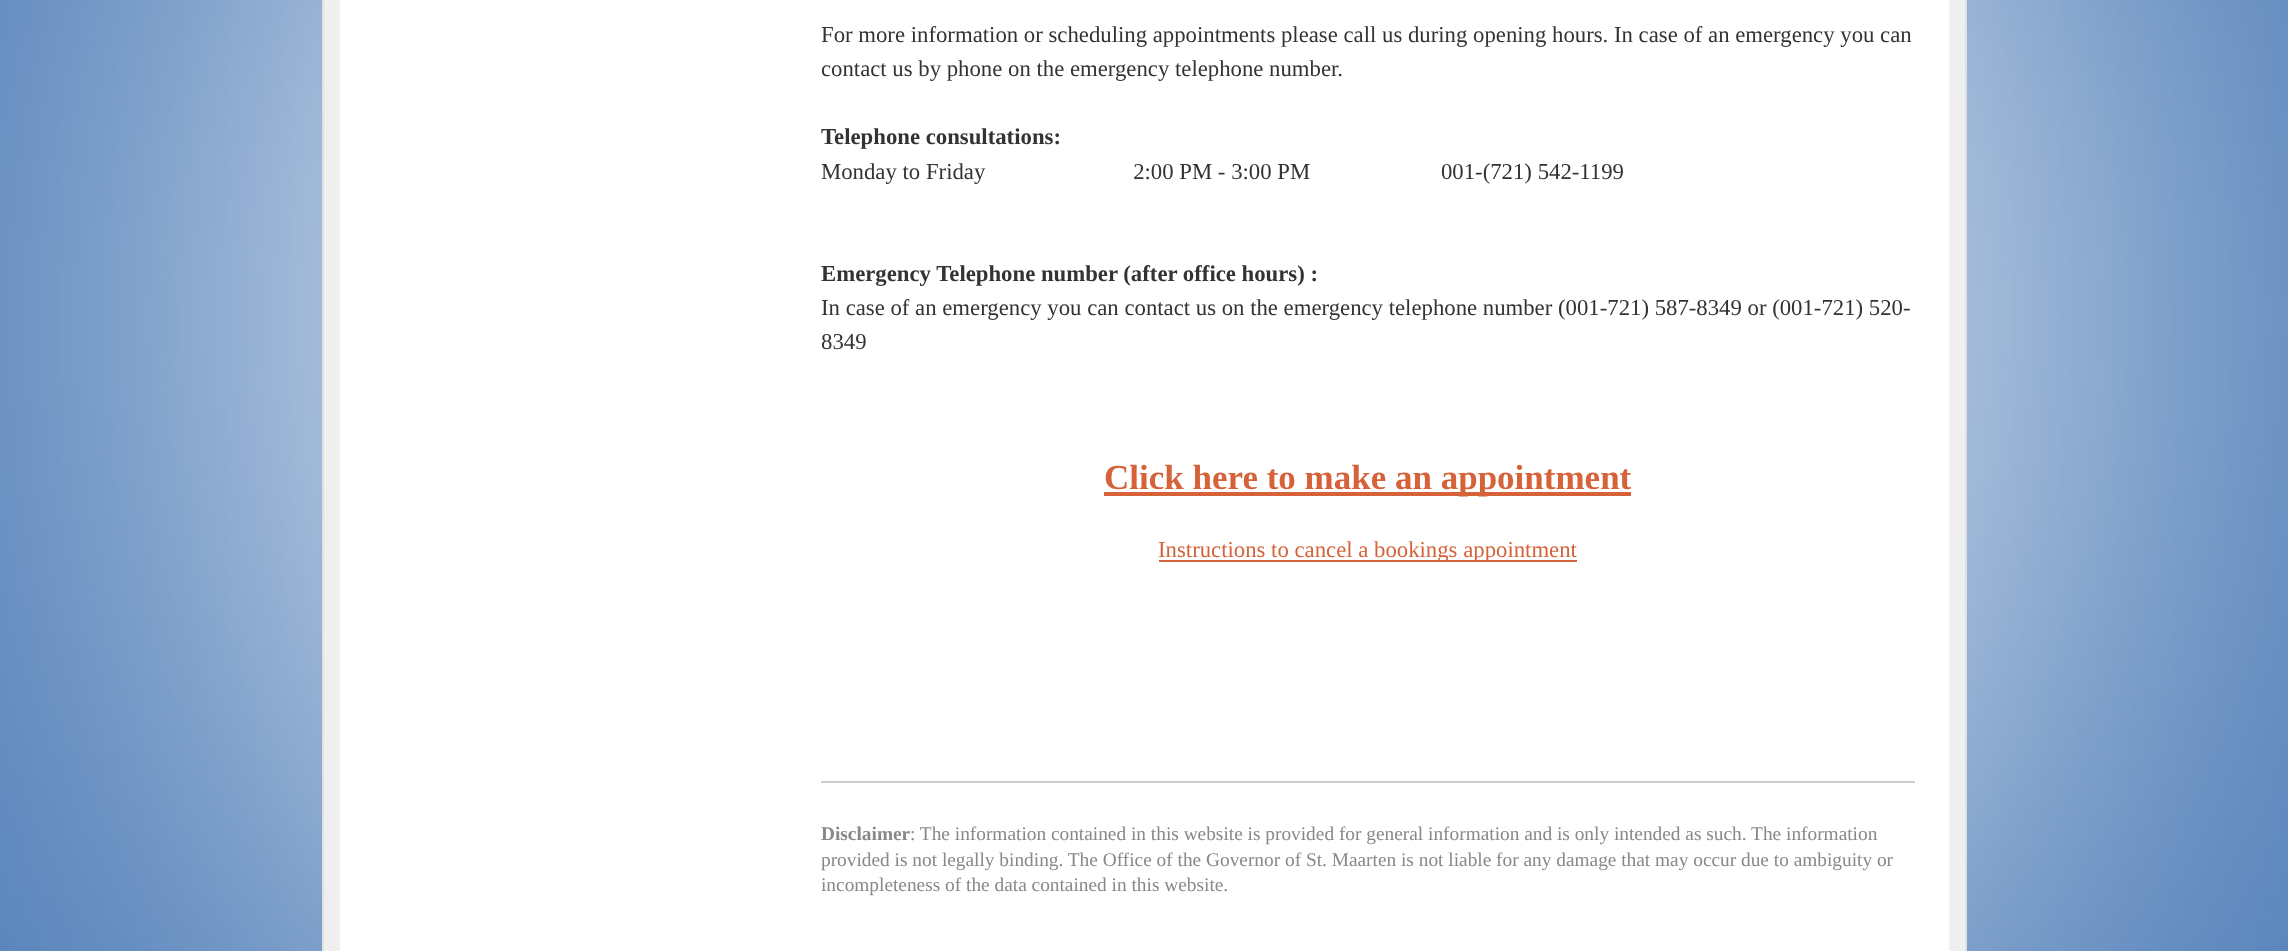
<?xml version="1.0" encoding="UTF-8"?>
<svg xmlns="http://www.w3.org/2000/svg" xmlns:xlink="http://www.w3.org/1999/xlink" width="2288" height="951">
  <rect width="100%" height="100%" fill="#ffffff" />
  <image x="0" y="0" width="2288" height="951" xlink:href="image1.png" />
  <image x="322" y="0" width="1645" height="951" xlink:href="image2.png" />
  <rect x="1104" y="492" width="527" height="4" fill="#d56239" />
  <rect x="1159" y="560" width="418" height="2" fill="#d56239" />
  <rect x="821" y="781" width="1094" height="2" fill="#cccccc" />
  <text x="821" y="42" style="font-family: Liberation Serif; font-size: 22.75px; fill: #333333">For more information or scheduling appointments please call us during opening hours. In case of an emergency you can</text>
  <text x="821" y="76" style="font-family: Liberation Serif; font-size: 22.75px; fill: #333333">contact us by phone on the emergency telephone number.</text>
  <text x="821" y="144" style="font-family: Liberation Serif; font-size: 22.75px; font-weight: bold; fill: #333333">Telephone consultations:</text>
  <text x="821" y="179" style="font-family: Liberation Serif; font-size: 22.75px; fill: #333333" xml:space="preserve">Monday to Friday                          2:00 PM - 3:00 PM                       001-(721) 542-1199</text>
  <text x="821" y="281" style="font-family: Liberation Serif; font-size: 22.75px; font-weight: bold; fill: #333333">Emergency Telephone number (after office hours) :</text>
  <text x="821" y="315" style="font-family: Liberation Serif; font-size: 22.75px; fill: #333333">In case of an emergency you can contact us on the emergency telephone number (001-721) 587-8349 or (001-721) 520-</text>
  <text x="821" y="349" style="font-family: Liberation Serif; font-size: 22.75px; fill: #333333">8349</text>
  <text x="1104" y="489" style="font-family: Liberation Serif; font-size: 35px; font-weight: bold; fill: #d56239">Click here to make an appointment</text>
  <text x="1158" y="557" style="font-family: Liberation Serif; font-size: 22.75px; fill: #d56239">Instructions to cancel a bookings appointment</text>
  <text x="821" y="840" style="font-family: Liberation Serif; font-size: 19.35px; font-weight: bold; fill: #888888">Disclaimer</text>
  <text x="910" y="840" style="font-family: Liberation Serif; font-size: 19.35px; fill: #888888">: The information contained in this website is provided for general information and is only intended as such. The information</text>
  <text x="821" y="866" style="font-family: Liberation Serif; font-size: 19.35px; fill: #888888">provided is not legally binding. The Office of the Governor of St. Maarten is not liable for any damage that may occur due to ambiguity or</text>
  <text x="821" y="891" style="font-family: Liberation Serif; font-size: 19.35px; fill: #888888">incompleteness of the data contained in this website.</text>
</svg>
